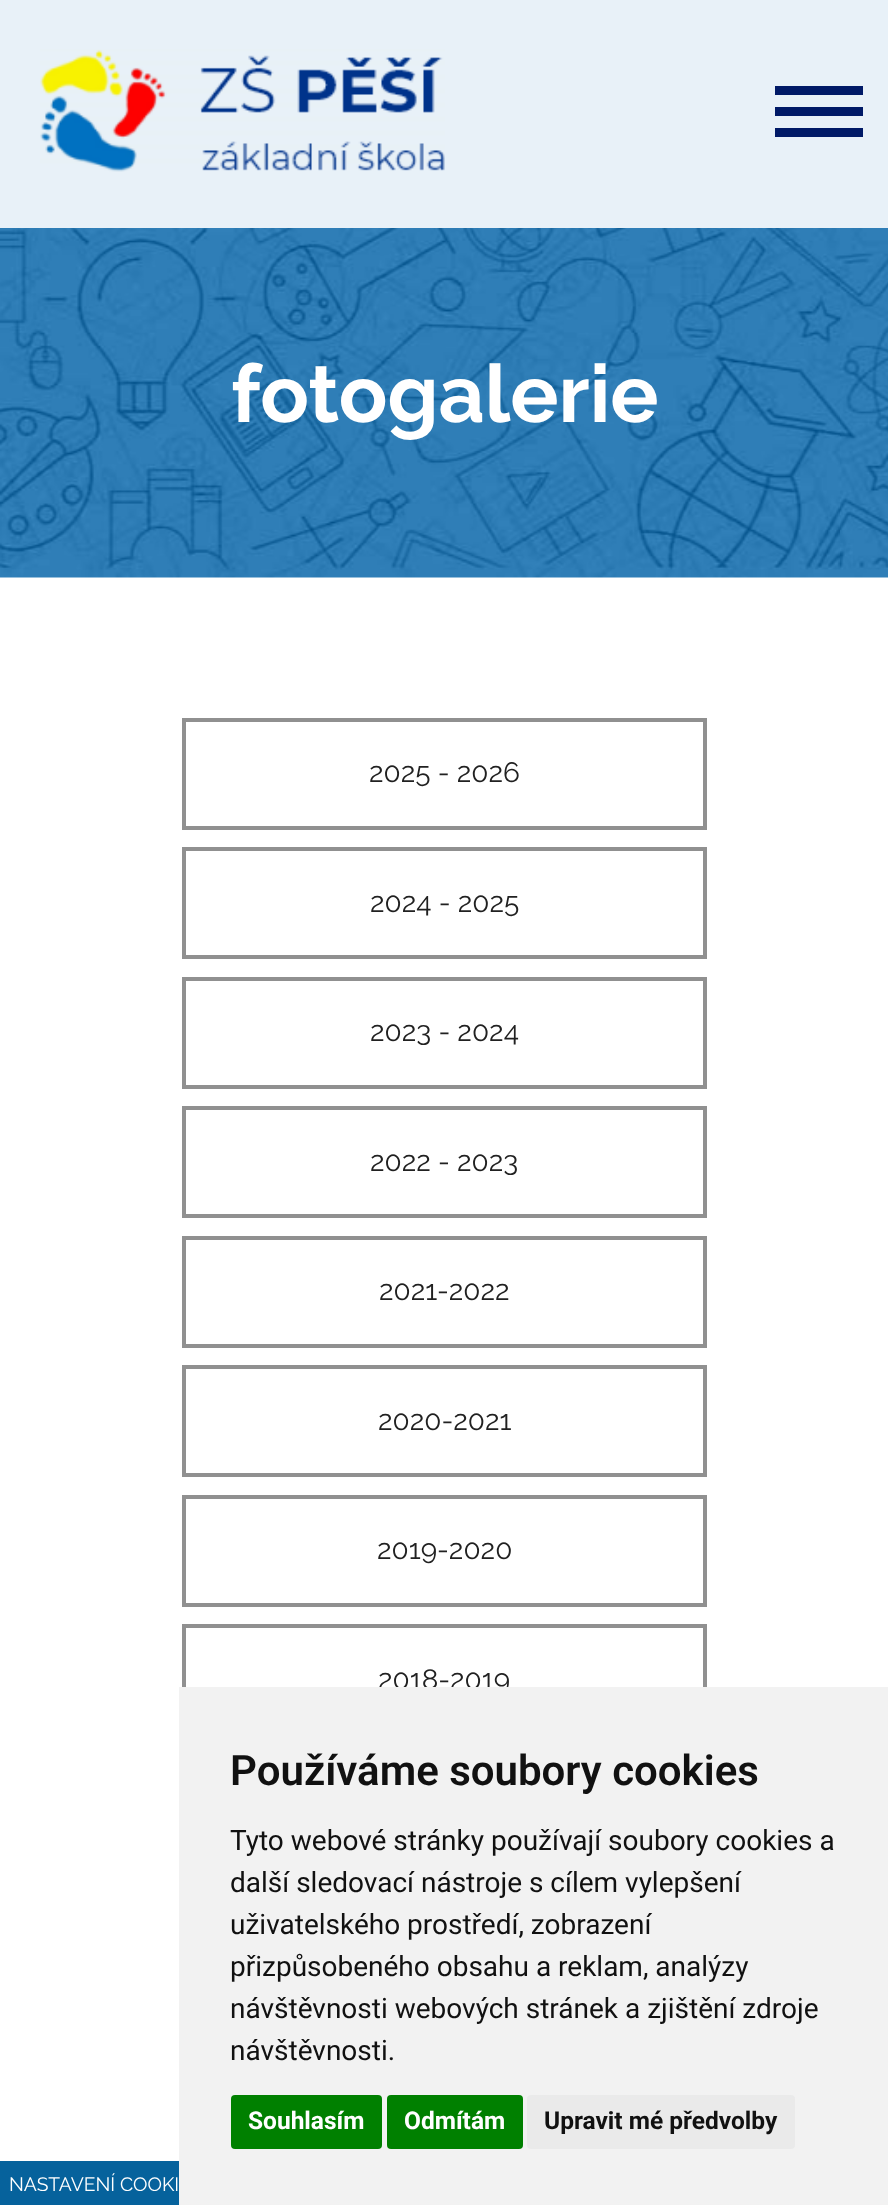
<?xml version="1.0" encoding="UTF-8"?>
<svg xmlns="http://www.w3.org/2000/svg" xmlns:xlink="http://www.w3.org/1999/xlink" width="888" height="2205">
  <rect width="100%" height="100%" fill="#ffffff" />
  <rect width="888" height="228" fill="#e8f1f8" />
  <image x="40" y="49" width="405" height="123" xlink:href="image1.png" />
  <rect x="775" y="86" width="88" height="9" fill="#001a67" />
  <rect x="775" y="107" width="88" height="9" fill="#001a67" />
  <rect x="775" y="128" width="88" height="9" fill="#001a67" />
  <image x="0" y="228" width="888" height="350" xlink:href="image2.png" />
  <rect x="184" y="720" width="521" height="108" fill="none" stroke="#909090" stroke-width="4" />
  <rect x="184" y="849" width="521" height="108" fill="none" stroke="#909090" stroke-width="4" />
  <rect x="184" y="979" width="521" height="108" fill="none" stroke="#909090" stroke-width="4" />
  <rect x="184" y="1108" width="521" height="108" fill="none" stroke="#909090" stroke-width="4" />
  <rect x="184" y="1238" width="521" height="108" fill="none" stroke="#909090" stroke-width="4" />
  <rect x="184" y="1367" width="521" height="108" fill="none" stroke="#909090" stroke-width="4" />
  <rect x="184" y="1497" width="521" height="108" fill="none" stroke="#909090" stroke-width="4" />
  <rect x="184" y="1626" width="521" height="108" fill="none" stroke="#909090" stroke-width="4" />
  <rect y="2161" width="179" height="44" fill="#06629c" />
  <text x="231" y="422" style="font-family: Raleway; font-size: 80.5px; font-weight: bold; fill: #ffffff">fotogalerie</text>
  <text x="369" y="782" style="font-family: Raleway; font-size: 28px; fill: #212121">2025 - 2026</text>
  <text x="370" y="912" style="font-family: Raleway; font-size: 28px; fill: #212121">2024 - 2025</text>
  <text x="370" y="1041" style="font-family: Raleway; font-size: 28px; fill: #212121">2023 - 2024</text>
  <text x="370" y="1171" style="font-family: Raleway; font-size: 28px; fill: #212121">2022 - 2023</text>
  <text x="379" y="1300" style="font-family: Raleway; font-size: 28px; fill: #212121">2021-2022</text>
  <text x="378" y="1430" style="font-family: Raleway; font-size: 28px; fill: #212121">2020-2021</text>
  <text x="377" y="1559" style="font-family: Raleway; font-size: 28px; fill: #212121">2019-2020</text>
  <text x="378" y="1689" style="font-family: Raleway; font-size: 28px; fill: #212121">2018-2019</text>
  <rect x="179" y="1687" width="709" height="518" fill="#f2f2f2" />
  <text x="230" y="1785" style="font-family: Roboto; font-size: 42px; font-weight: 600; fill: #111111">Používáme soubory cookies</text>
  <text x="230" y="1850" style="font-family: Roboto; font-size: 28px; fill: #111111">Tyto webové stránky používají soubory cookies a</text>
  <text x="230" y="1892" style="font-family: Roboto; font-size: 28px; fill: #111111">další sledovací nástroje s cílem vylepšení</text>
  <text x="230" y="1934" style="font-family: Roboto; font-size: 28px; fill: #111111">uživatelského prostředí, zobrazení</text>
  <text x="230" y="1976" style="font-family: Roboto; font-size: 28px; fill: #111111">přizpůsobeného obsahu a reklam, analýzy</text>
  <text x="230" y="2018" style="font-family: Roboto; font-size: 28px; fill: #111111">návštěvnosti webových stránek a zjištění zdroje</text>
  <text x="230" y="2060" style="font-family: Roboto; font-size: 28px; fill: #111111">návštěvnosti.</text>
  <rect x="231" y="2095" width="151" height="54" rx="4" fill="#008000" />
  <text x="248" y="2129" style="font-family: Roboto; font-size: 24.5px; font-weight: bold; fill: #ffffff">Souhlasím</text>
  <rect x="387" y="2095" width="136" height="54" rx="4" fill="#008000" />
  <text x="404" y="2129" style="font-family: Roboto; font-size: 24.5px; font-weight: bold; fill: #ffffff">Odmítám</text>
  <rect x="527" y="2095" width="268" height="54" rx="4" fill="#eaeaea" />
  <text x="544" y="2129" style="font-family: Roboto; font-size: 24.5px; font-weight: bold; fill: #111111">Upravit mé předvolby</text>
  <text x="9" y="2191" style="font-family: Raleway; font-size: 19.25px; fill: #ffffff">NASTAVENÍ COOKI</text>
</svg>
